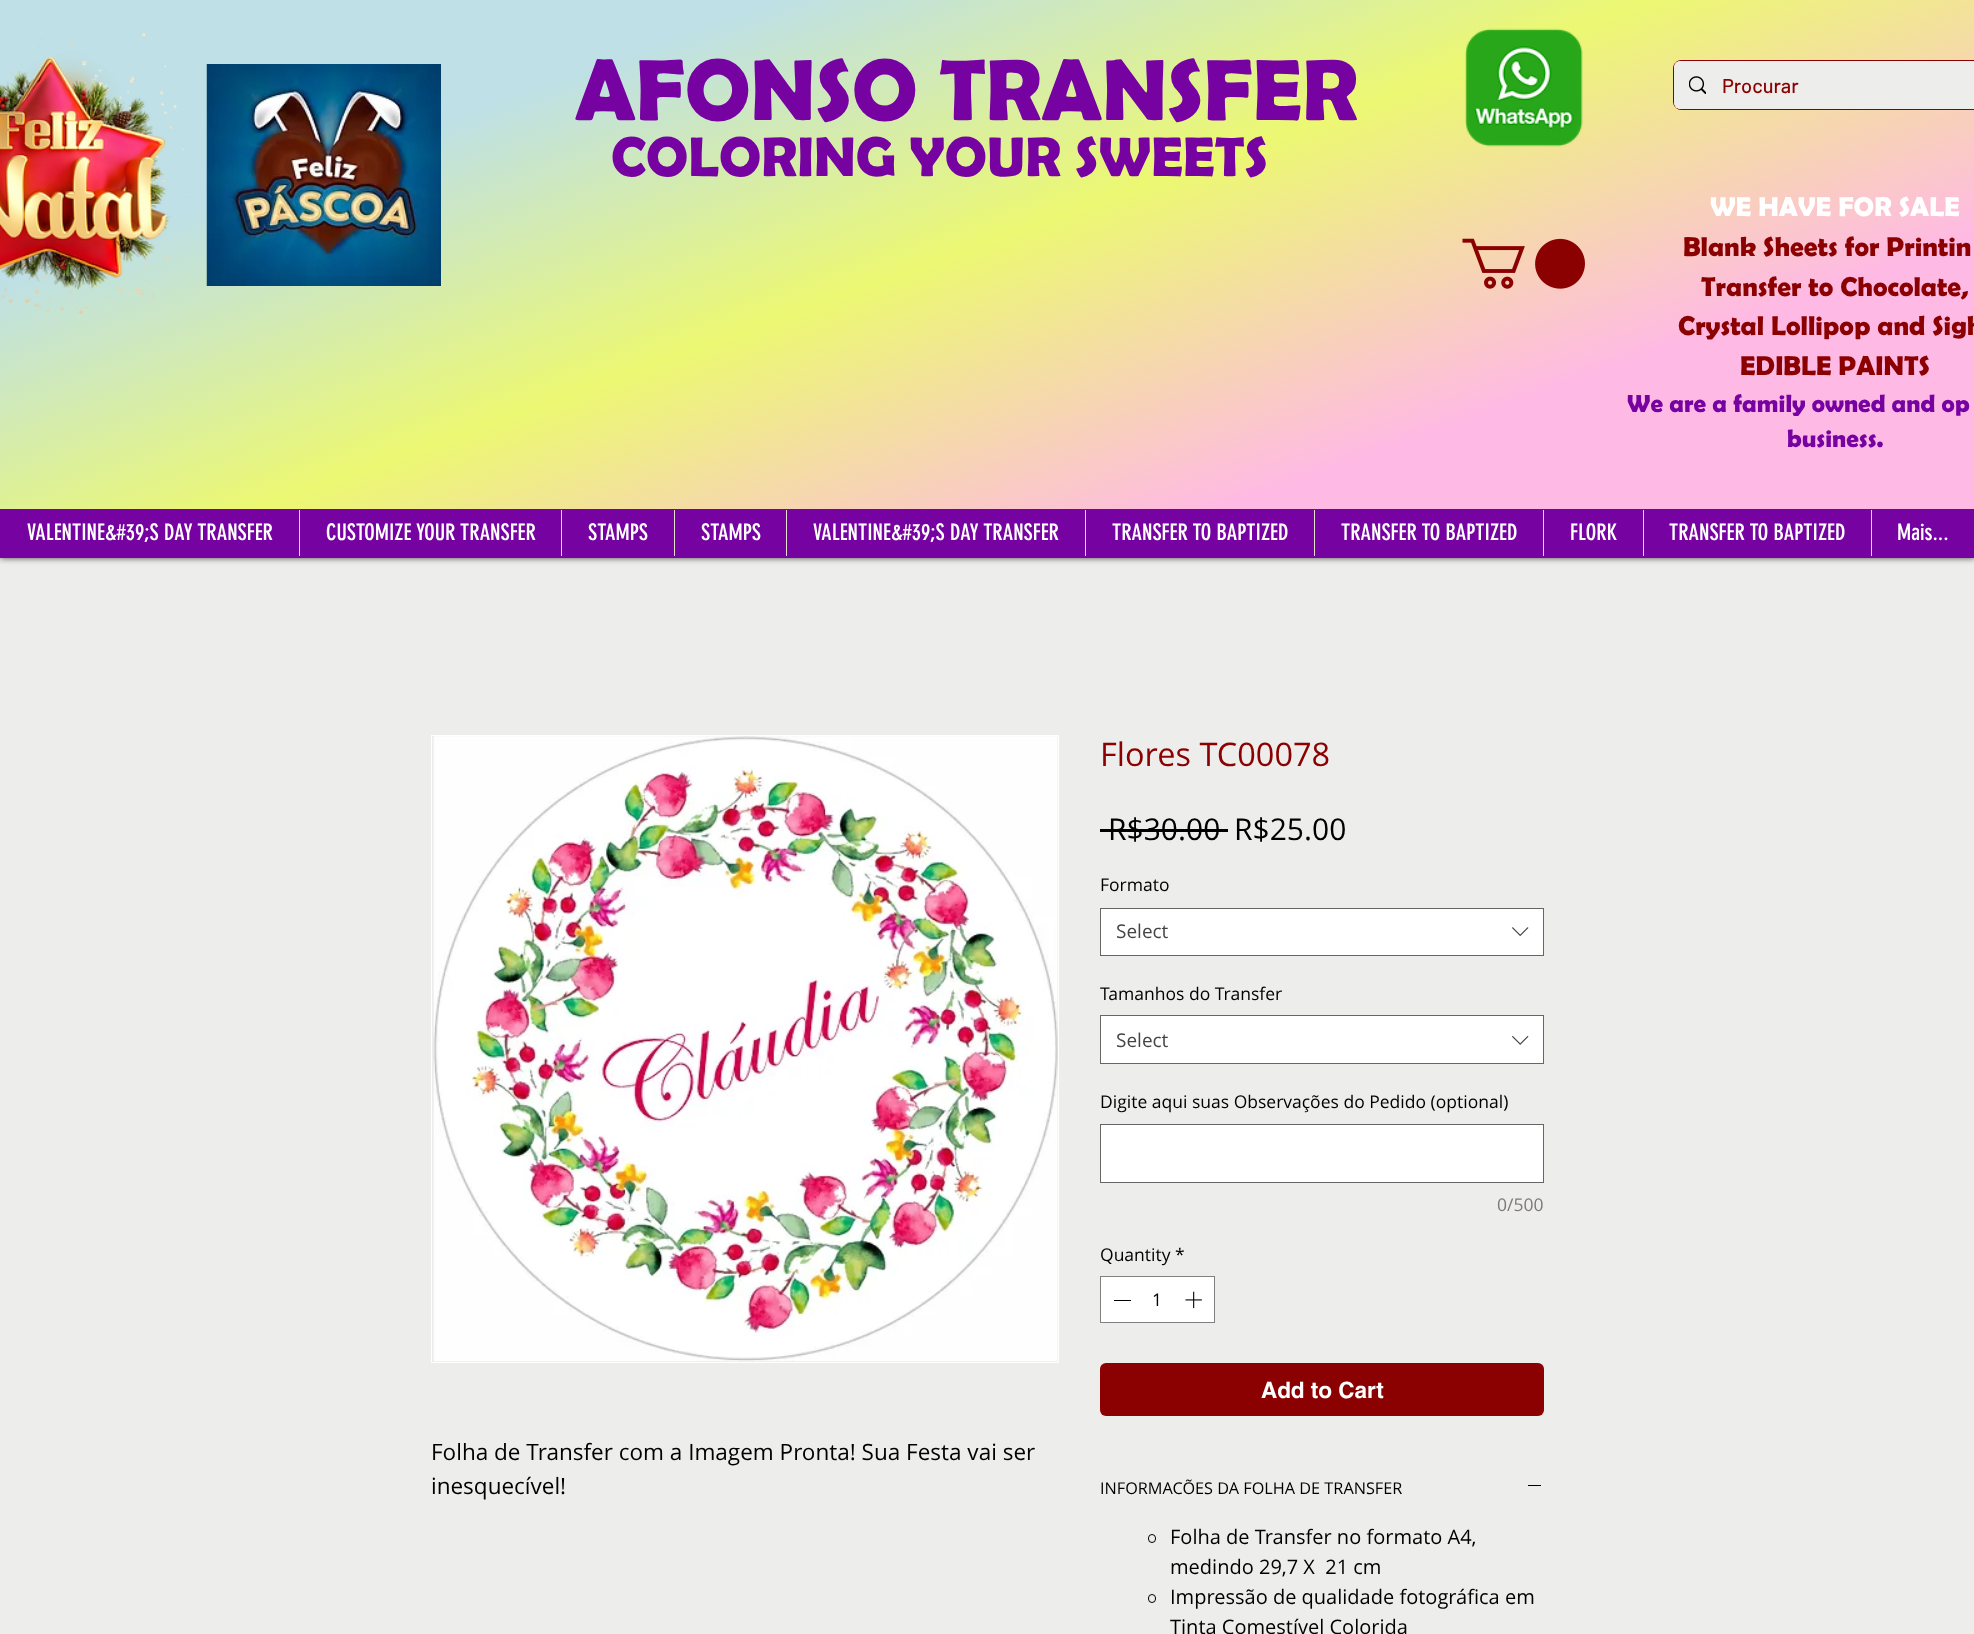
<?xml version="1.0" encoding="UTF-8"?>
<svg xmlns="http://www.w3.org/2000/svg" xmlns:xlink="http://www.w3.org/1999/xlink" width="1974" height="1634">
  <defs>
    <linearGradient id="g1" gradientUnits="userSpaceOnUse" x1="1185" y1="796" x2="790" y2="-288"><stop offset="0.22" stop-color="#ffb9e5" /><stop offset="0.51" stop-color="#ecf872" /><stop offset="0.77" stop-color="#bee0e6" /></linearGradient>
  </defs>
  <rect width="100%" height="100%" fill="#ededec" />
  <rect width="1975" height="558" fill="#000000" fill-opacity="0.7" filter="blur(3px)" />
  <rect width="1974" height="509" fill="url(#g1)" />
  <image x="0" y="32" width="188" height="282" xlink:href="image1.png" />
  <image x="206" y="64" width="235" height="222" xlink:href="image2.png" />
  <image x="1465" y="28" width="118" height="119" xlink:href="image3.png" />
  <rect x="1673.5" y="60.5" width="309" height="49" rx="7.5" fill="none" stroke="#8b0000" />
  <rect x="1674" y="61" width="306" height="48" rx="6" fill="#ededec" />
  <image x="1689" y="76" width="17" height="18" xlink:href="image4.png" />
  <image x="1462" y="238" width="123" height="51" xlink:href="image5.png" />
  <rect y="509" width="1974" height="49" fill="#7603a1" />
  <rect x="299" y="510" width="1" height="46" fill="#e6deca" />
  <rect x="561" y="510" width="1" height="46" fill="#e6deca" />
  <rect x="674" y="510" width="1" height="46" fill="#e6deca" />
  <rect x="786" y="510" width="1" height="46" fill="#e6deca" />
  <rect x="1085" y="510" width="1" height="46" fill="#e6deca" />
  <rect x="1314" y="510" width="1" height="46" fill="#e6deca" />
  <rect x="1543" y="510" width="1" height="46" fill="#e6deca" />
  <rect x="1643" y="510" width="1" height="46" fill="#e6deca" />
  <rect x="1871" y="510" width="1" height="46" fill="#e6deca" />
  <rect x="431.5" y="735.5" width="627" height="627" fill="none" stroke="#ffffff" />
  <image x="433" y="736" width="625" height="626" xlink:href="image6.png" />
  <rect x="1100" y="829" width="128" height="3" fill="#000000" />
  <rect x="1100.5" y="908.5" width="443" height="47" fill="#ffffff" stroke="#666666" />
  <image x="1512" y="927" width="17" height="10" xlink:href="image7.png" />
  <rect x="1100.5" y="1015.5" width="443" height="48" fill="#ffffff" stroke="#666666" />
  <image x="1512" y="1035" width="17" height="10" xlink:href="image8.png" />
  <rect x="1100.5" y="1124.5" width="443" height="58" fill="#ffffff" stroke="#666666" />
  <rect x="1100.5" y="1276.5" width="114" height="46" fill="#ffffff" stroke="#808080" />
  <rect x="1114" y="1300" width="17" height="1" fill="#000000" />
  <image x="1185" y="1291" width="17" height="18" xlink:href="image9.png" />
  <rect x="1100" y="1363" width="444" height="53" rx="6" fill="#8b0000" />
  <rect x="1528" y="1485" width="13" height="1" fill="#000000" />
  <rect x="1148.5" y="1534.5" width="7" height="8" rx="3.5" fill="none" stroke="#000000" />
  <rect x="1148.5" y="1594.5" width="7" height="8" rx="3.5" fill="none" stroke="#000000" />
  <text x="575" y="120" style="font-family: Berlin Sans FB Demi; font-size: 87.5px; font-weight: 600; fill: #7603a1">AFONSO TRANSFER</text>
  <text x="611" y="176" style="font-family: Berlin Sans FB Demi; font-size: 56.25px; font-weight: 600; fill: #7603a1">COLORING YOUR SWEETS</text>
  <text x="1722" y="93" style="font-family: Barlow; font-size: 20px; font-weight: 500; fill: #8b0000">Procurar</text>
  <text x="1710" y="216" style="font-family: Berlin Sans FB Demi; font-size: 27.5px; font-weight: 600; fill: #ffffff">WE HAVE FOR SALE</text>
  <text x="1683" y="256" style="font-family: Berlin Sans FB Demi; font-size: 27.5px; font-weight: 600; fill: #8b0000">Blank Sheets for Printin</text>
  <text x="1701" y="296" style="font-family: Berlin Sans FB Demi; font-size: 27.5px; font-weight: 600; fill: #8b0000">Transfer to Chocolate,</text>
  <text x="1678" y="335" style="font-family: Berlin Sans FB Demi; font-size: 27.5px; font-weight: 600; fill: #8b0000">Crystal Lollipop and Sigh</text>
  <text x="1740" y="375" style="font-family: Berlin Sans FB Demi; font-size: 27.5px; font-weight: 600; fill: #8b0000">EDIBLE PAINTS</text>
  <text x="1627" y="412" style="font-family: Berlin Sans FB Demi; font-size: 25px; font-weight: 600; fill: #7603a1">We are a family owned and op</text>
  <text x="1787" y="447" style="font-family: Berlin Sans FB Demi; font-size: 25px; font-weight: 600; fill: #7603a1">business.</text>
  <text x="27" y="540" style="font-family: 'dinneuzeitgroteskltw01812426'; font-size: 22.5px; fill: #ffffff">VALENTINE&amp;#39;S DAY TRANSFER</text>
  <text x="326" y="540" style="font-family: 'dinneuzeitgroteskltw01812426'; font-size: 22.5px; fill: #ffffff">CUSTOMIZE YOUR TRANSFER</text>
  <text x="588" y="540" style="font-family: 'dinneuzeitgroteskltw01812426'; font-size: 22.5px; fill: #ffffff">STAMPS</text>
  <text x="701" y="540" style="font-family: 'dinneuzeitgroteskltw01812426'; font-size: 22.5px; fill: #ffffff">STAMPS</text>
  <text x="813" y="540" style="font-family: 'dinneuzeitgroteskltw01812426'; font-size: 22.5px; fill: #ffffff">VALENTINE&amp;#39;S DAY TRANSFER</text>
  <text x="1112" y="540" style="font-family: 'dinneuzeitgroteskltw01812426'; font-size: 22.5px; fill: #ffffff">TRANSFER TO BAPTIZED</text>
  <text x="1341" y="540" style="font-family: 'dinneuzeitgroteskltw01812426'; font-size: 22.5px; fill: #ffffff">TRANSFER TO BAPTIZED</text>
  <text x="1570" y="540" style="font-family: 'dinneuzeitgroteskltw01812426'; font-size: 22.5px; fill: #ffffff">FLORK</text>
  <text x="1669" y="540" style="font-family: 'dinneuzeitgroteskltw01812426'; font-size: 22.5px; fill: #ffffff">TRANSFER TO BAPTIZED</text>
  <text x="1897" y="540" style="font-family: 'dinneuzeitgroteskltw01812426'; font-size: 22.5px; fill: #ffffff">Mais...</text>
  <text x="431" y="1460" style="font-family: Open Sans; font-size: 22.5px; fill: #000000">Folha de Transfer com a Imagem Pronta! Sua Festa vai ser</text>
  <text x="431" y="1494" style="font-family: Open Sans; font-size: 22.5px; fill: #000000">inesquecível!</text>
  <text x="1100" y="766" style="font-family: Open Sans; font-size: 32.5px; fill: #8b0000">Flores TC00078</text>
  <text x="1108" y="840" style="font-family: Open Sans; font-size: 30px; fill: #000000">R$30.00</text>
  <text x="1234" y="840" style="font-family: Open Sans; font-size: 30px; fill: #000000">R$25.00</text>
  <text x="1100" y="891" style="font-family: Open Sans; font-size: 17.5px; fill: #000000">Formato</text>
  <text x="1116" y="938" style="font-family: Open Sans; font-size: 19px; fill: #444444">Select</text>
  <text x="1100" y="1000" style="font-family: Open Sans; font-size: 17.5px; fill: #000000">Tamanhos do Transfer</text>
  <text x="1116" y="1047" style="font-family: Open Sans; font-size: 19px; fill: #444444">Select</text>
  <text x="1100" y="1108" style="font-family: Open Sans; font-size: 17.5px; fill: #000000">Digite aqui suas Observações do Pedido (optional)</text>
  <text x="1497" y="1211" style="font-family: Open Sans; font-size: 17.5px; fill: #7c7878">0/500</text>
  <text x="1100" y="1261" style="font-family: Open Sans; font-size: 17.5px; fill: #000000">Quantity</text>
  <text x="1175" y="1261" style="font-family: Open Sans; font-size: 17.5px; fill: #000000">*</text>
  <text x="1152" y="1306" style="font-family: Open Sans; font-size: 17.5px; fill: #000000">1</text>
  <text x="1261" y="1398" style="font-family: helvetica; font-size: 22.5px; font-weight: bold; fill: #ffffff">Add to Cart</text>
  <text x="1100" y="1494" style="font-family: Open Sans; font-size: 16.25px; fill: #000000">INFORMACÕES DA FOLHA DE TRANSFER</text>
  <text x="1170" y="1544" style="font-family: Open Sans; font-size: 20px; fill: #000000">Folha de Transfer no formato A4,</text>
  <text x="1170" y="1574" style="font-family: Open Sans; font-size: 20px; fill: #000000" xml:space="preserve">medindo 29,7 X  21 cm</text>
  <text x="1170" y="1604" style="font-family: Open Sans; font-size: 20px; fill: #000000">Impressão de qualidade fotográfica em</text>
  <text x="1170" y="1634" style="font-family: Open Sans; font-size: 20px; fill: #000000">Tinta Comestível Colorida</text>
</svg>
